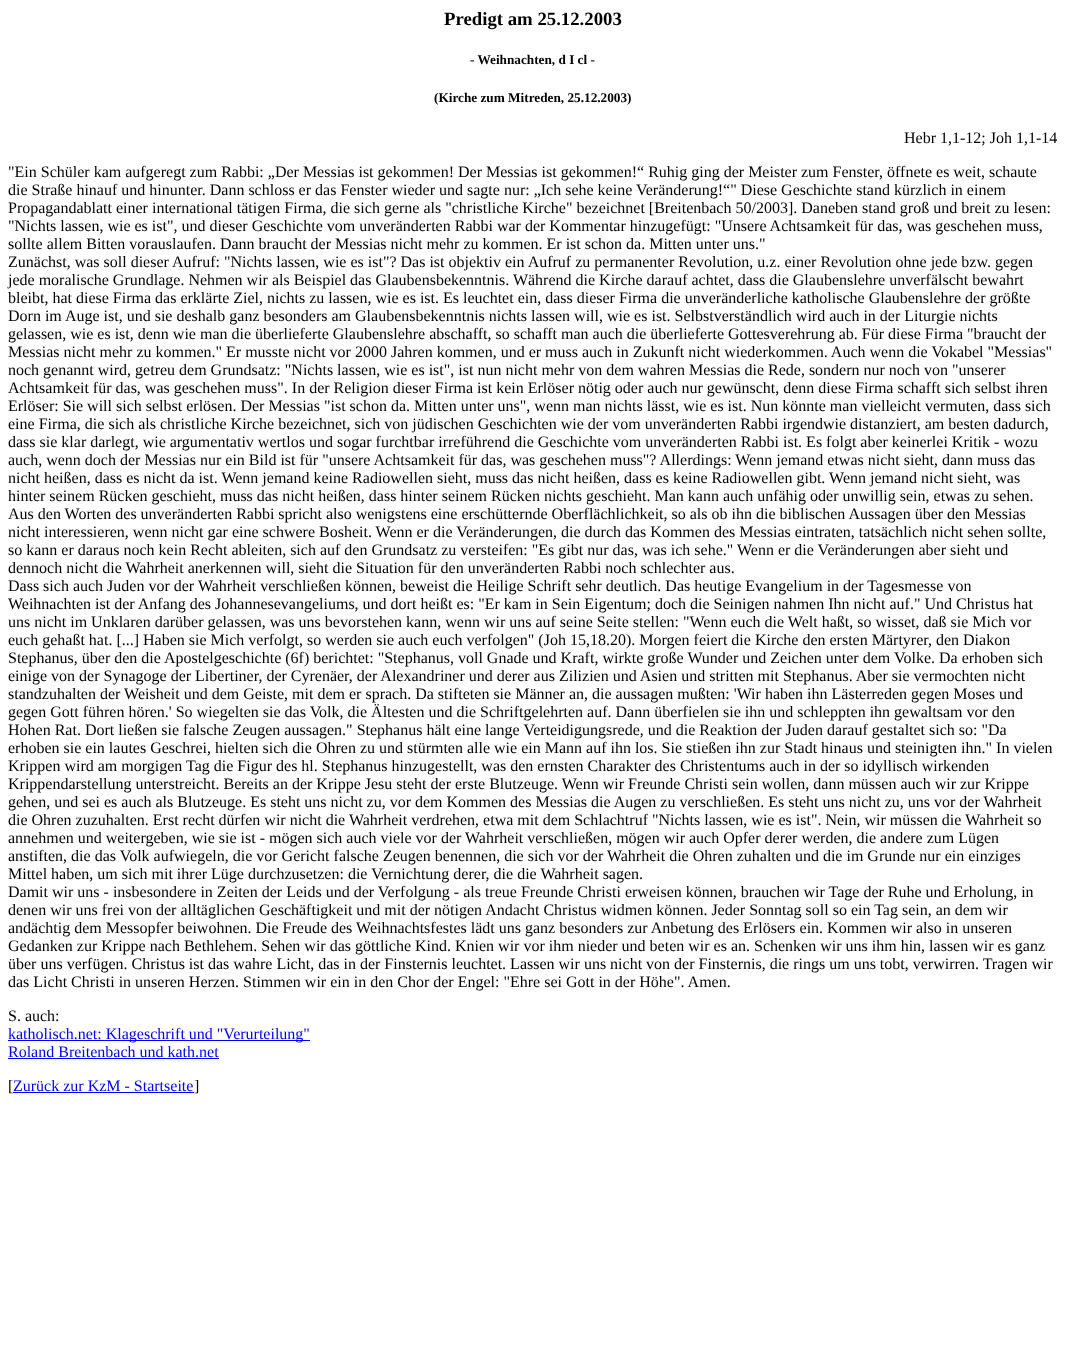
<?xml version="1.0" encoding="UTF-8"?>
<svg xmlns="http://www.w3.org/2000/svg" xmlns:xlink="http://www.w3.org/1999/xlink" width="1065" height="1371">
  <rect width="100%" height="100%" fill="#ffffff" />
  <rect x="8" y="1040" width="302" height="1" fill="#0000ee" />
  <rect x="8" y="1058" width="211" height="1" fill="#0000ee" />
  <rect x="13" y="1092" width="181" height="1" fill="#0000ee" />
  <text x="444" y="25" style="font-family: Liberation Serif; font-size: 18.75px; font-weight: bold; fill: #000000">Predigt am 25.12.2003</text>
  <text x="470" y="64" style="font-family: Liberation Serif; font-size: 13.25px; font-weight: bold; fill: #000000">- Weihnachten, d I cl -</text>
  <text x="434" y="102" style="font-family: Liberation Serif; font-size: 13.25px; font-weight: bold; fill: #000000">(Kirche zum Mitreden, 25.12.2003)</text>
  <text x="904" y="143" style="font-family: Liberation Serif; font-size: 16px; fill: #000000">Hebr 1,1-12; Joh 1,1-14</text>
  <text x="8" y="177" style="font-family: Liberation Serif; font-size: 16px; fill: #000000">"Ein Schüler kam aufgeregt zum Rabbi: „Der Messias ist gekommen! Der Messias ist gekommen!“ Ruhig ging der Meister zum Fenster, öffnete es weit, schaute</text>
  <text x="8" y="195" style="font-family: Liberation Serif; font-size: 16px; fill: #000000">die Straße hinauf und hinunter. Dann schloss er das Fenster wieder und sagte nur: „Ich sehe keine Veränderung!“" Diese Geschichte stand kürzlich in einem</text>
  <text x="8" y="213" style="font-family: Liberation Serif; font-size: 16px; fill: #000000">Propagandablatt einer international tätigen Firma, die sich gerne als "christliche Kirche" bezeichnet [Breitenbach 50/2003]. Daneben stand groß und breit zu lesen:</text>
  <text x="8" y="231" style="font-family: Liberation Serif; font-size: 16px; fill: #000000">"Nichts lassen, wie es ist", und dieser Geschichte vom unveränderten Rabbi war der Kommentar hinzugefügt: "Unsere Achtsamkeit für das, was geschehen muss,</text>
  <text x="8" y="249" style="font-family: Liberation Serif; font-size: 16px; fill: #000000">sollte allem Bitten vorauslaufen. Dann braucht der Messias nicht mehr zu kommen. Er ist schon da. Mitten unter uns."</text>
  <text x="8" y="267" style="font-family: Liberation Serif; font-size: 16px; fill: #000000">Zunächst, was soll dieser Aufruf: "Nichts lassen, wie es ist"? Das ist objektiv ein Aufruf zu permanenter Revolution, u.z. einer Revolution ohne jede bzw. gegen</text>
  <text x="8" y="285" style="font-family: Liberation Serif; font-size: 16px; fill: #000000">jede moralische Grundlage. Nehmen wir als Beispiel das Glaubensbekenntnis. Während die Kirche darauf achtet, dass die Glaubenslehre unverfälscht bewahrt</text>
  <text x="8" y="303" style="font-family: Liberation Serif; font-size: 16px; fill: #000000">bleibt, hat diese Firma das erklärte Ziel, nichts zu lassen, wie es ist. Es leuchtet ein, dass dieser Firma die unveränderliche katholische Glaubenslehre der größte</text>
  <text x="8" y="321" style="font-family: Liberation Serif; font-size: 16px; fill: #000000">Dorn im Auge ist, und sie deshalb ganz besonders am Glaubensbekenntnis nichts lassen will, wie es ist. Selbstverständlich wird auch in der Liturgie nichts</text>
  <text x="8" y="339" style="font-family: Liberation Serif; font-size: 16px; fill: #000000">gelassen, wie es ist, denn wie man die überlieferte Glaubenslehre abschafft, so schafft man auch die überlieferte Gottesverehrung ab. Für diese Firma "braucht der</text>
  <text x="8" y="357" style="font-family: Liberation Serif; font-size: 16px; fill: #000000">Messias nicht mehr zu kommen." Er musste nicht vor 2000 Jahren kommen, und er muss auch in Zukunft nicht wiederkommen. Auch wenn die Vokabel "Messias"</text>
  <text x="8" y="375" style="font-family: Liberation Serif; font-size: 16px; fill: #000000">noch genannt wird, getreu dem Grundsatz: "Nichts lassen, wie es ist", ist nun nicht mehr von dem wahren Messias die Rede, sondern nur noch von "unserer</text>
  <text x="8" y="393" style="font-family: Liberation Serif; font-size: 16px; fill: #000000">Achtsamkeit für das, was geschehen muss". In der Religion dieser Firma ist kein Erlöser nötig oder auch nur gewünscht, denn diese Firma schafft sich selbst ihren</text>
  <text x="8" y="411" style="font-family: Liberation Serif; font-size: 16px; fill: #000000">Erlöser: Sie will sich selbst erlösen. Der Messias "ist schon da. Mitten unter uns", wenn man nichts lässt, wie es ist. Nun könnte man vielleicht vermuten, dass sich</text>
  <text x="8" y="429" style="font-family: Liberation Serif; font-size: 16px; fill: #000000">eine Firma, die sich als christliche Kirche bezeichnet, sich von jüdischen Geschichten wie der vom unveränderten Rabbi irgendwie distanziert, am besten dadurch,</text>
  <text x="8" y="447" style="font-family: Liberation Serif; font-size: 16px; fill: #000000">dass sie klar darlegt, wie argumentativ wertlos und sogar furchtbar irreführend die Geschichte vom unveränderten Rabbi ist. Es folgt aber keinerlei Kritik - wozu</text>
  <text x="8" y="465" style="font-family: Liberation Serif; font-size: 16px; fill: #000000">auch, wenn doch der Messias nur ein Bild ist für "unsere Achtsamkeit für das, was geschehen muss"? Allerdings: Wenn jemand etwas nicht sieht, dann muss das</text>
  <text x="8" y="483" style="font-family: Liberation Serif; font-size: 16px; fill: #000000">nicht heißen, dass es nicht da ist. Wenn jemand keine Radiowellen sieht, muss das nicht heißen, dass es keine Radiowellen gibt. Wenn jemand nicht sieht, was</text>
  <text x="8" y="501" style="font-family: Liberation Serif; font-size: 16px; fill: #000000">hinter seinem Rücken geschieht, muss das nicht heißen, dass hinter seinem Rücken nichts geschieht. Man kann auch unfähig oder unwillig sein, etwas zu sehen.</text>
  <text x="8" y="519" style="font-family: Liberation Serif; font-size: 16px; fill: #000000">Aus den Worten des unveränderten Rabbi spricht also wenigstens eine erschütternde Oberflächlichkeit, so als ob ihn die biblischen Aussagen über den Messias</text>
  <text x="8" y="537" style="font-family: Liberation Serif; font-size: 16px; fill: #000000">nicht interessieren, wenn nicht gar eine schwere Bosheit. Wenn er die Veränderungen, die durch das Kommen des Messias eintraten, tatsächlich nicht sehen sollte,</text>
  <text x="8" y="555" style="font-family: Liberation Serif; font-size: 16px; fill: #000000">so kann er daraus noch kein Recht ableiten, sich auf den Grundsatz zu versteifen: "Es gibt nur das, was ich sehe." Wenn er die Veränderungen aber sieht und</text>
  <text x="8" y="573" style="font-family: Liberation Serif; font-size: 16px; fill: #000000">dennoch nicht die Wahrheit anerkennen will, sieht die Situation für den unveränderten Rabbi noch schlechter aus.</text>
  <text x="8" y="591" style="font-family: Liberation Serif; font-size: 16px; fill: #000000">Dass sich auch Juden vor der Wahrheit verschließen können, beweist die Heilige Schrift sehr deutlich. Das heutige Evangelium in der Tagesmesse von</text>
  <text x="8" y="609" style="font-family: Liberation Serif; font-size: 16px; fill: #000000">Weihnachten ist der Anfang des Johannesevangeliums, und dort heißt es: "Er kam in Sein Eigentum; doch die Seinigen nahmen Ihn nicht auf." Und Christus hat</text>
  <text x="8" y="627" style="font-family: Liberation Serif; font-size: 16px; fill: #000000">uns nicht im Unklaren darüber gelassen, was uns bevorstehen kann, wenn wir uns auf seine Seite stellen: "Wenn euch die Welt haßt, so wisset, daß sie Mich vor</text>
  <text x="8" y="645" style="font-family: Liberation Serif; font-size: 16px; fill: #000000">euch gehaßt hat. [...] Haben sie Mich verfolgt, so werden sie auch euch verfolgen" (Joh 15,18.20). Morgen feiert die Kirche den ersten Märtyrer, den Diakon</text>
  <text x="8" y="663" style="font-family: Liberation Serif; font-size: 16px; fill: #000000">Stephanus, über den die Apostelgeschichte (6f) berichtet: "Stephanus, voll Gnade und Kraft, wirkte große Wunder und Zeichen unter dem Volke. Da erhoben sich</text>
  <text x="8" y="681" style="font-family: Liberation Serif; font-size: 16px; fill: #000000">einige von der Synagoge der Libertiner, der Cyrenäer, der Alexandriner und derer aus Zilizien und Asien und stritten mit Stephanus. Aber sie vermochten nicht</text>
  <text x="8" y="699" style="font-family: Liberation Serif; font-size: 16px; fill: #000000">standzuhalten der Weisheit und dem Geiste, mit dem er sprach. Da stifteten sie Männer an, die aussagen mußten: 'Wir haben ihn Lästerreden gegen Moses und</text>
  <text x="8" y="717" style="font-family: Liberation Serif; font-size: 16px; fill: #000000">gegen Gott führen hören.' So wiegelten sie das Volk, die Ältesten und die Schriftgelehrten auf. Dann überfielen sie ihn und schleppten ihn gewaltsam vor den</text>
  <text x="8" y="735" style="font-family: Liberation Serif; font-size: 16px; fill: #000000">Hohen Rat. Dort ließen sie falsche Zeugen aussagen." Stephanus hält eine lange Verteidigungsrede, und die Reaktion der Juden darauf gestaltet sich so: "Da</text>
  <text x="8" y="753" style="font-family: Liberation Serif; font-size: 16px; fill: #000000">erhoben sie ein lautes Geschrei, hielten sich die Ohren zu und stürmten alle wie ein Mann auf ihn los. Sie stießen ihn zur Stadt hinaus und steinigten ihn." In vielen</text>
  <text x="8" y="771" style="font-family: Liberation Serif; font-size: 16px; fill: #000000">Krippen wird am morgigen Tag die Figur des hl. Stephanus hinzugestellt, was den ernsten Charakter des Christentums auch in der so idyllisch wirkenden</text>
  <text x="8" y="789" style="font-family: Liberation Serif; font-size: 16px; fill: #000000">Krippendarstellung unterstreicht. Bereits an der Krippe Jesu steht der erste Blutzeuge. Wenn wir Freunde Christi sein wollen, dann müssen auch wir zur Krippe</text>
  <text x="8" y="807" style="font-family: Liberation Serif; font-size: 16px; fill: #000000">gehen, und sei es auch als Blutzeuge. Es steht uns nicht zu, vor dem Kommen des Messias die Augen zu verschließen. Es steht uns nicht zu, uns vor der Wahrheit</text>
  <text x="8" y="825" style="font-family: Liberation Serif; font-size: 16px; fill: #000000">die Ohren zuzuhalten. Erst recht dürfen wir nicht die Wahrheit verdrehen, etwa mit dem Schlachtruf "Nichts lassen, wie es ist". Nein, wir müssen die Wahrheit so</text>
  <text x="8" y="843" style="font-family: Liberation Serif; font-size: 16px; fill: #000000">annehmen und weitergeben, wie sie ist - mögen sich auch viele vor der Wahrheit verschließen, mögen wir auch Opfer derer werden, die andere zum Lügen</text>
  <text x="8" y="861" style="font-family: Liberation Serif; font-size: 16px; fill: #000000">anstiften, die das Volk aufwiegeln, die vor Gericht falsche Zeugen benennen, die sich vor der Wahrheit die Ohren zuhalten und die im Grunde nur ein einziges</text>
  <text x="8" y="879" style="font-family: Liberation Serif; font-size: 16px; fill: #000000">Mittel haben, um sich mit ihrer Lüge durchzusetzen: die Vernichtung derer, die die Wahrheit sagen.</text>
  <text x="8" y="897" style="font-family: Liberation Serif; font-size: 16px; fill: #000000">Damit wir uns - insbesondere in Zeiten der Leids und der Verfolgung - als treue Freunde Christi erweisen können, brauchen wir Tage der Ruhe und Erholung, in</text>
  <text x="8" y="915" style="font-family: Liberation Serif; font-size: 16px; fill: #000000">denen wir uns frei von der alltäglichen Geschäftigkeit und mit der nötigen Andacht Christus widmen können. Jeder Sonntag soll so ein Tag sein, an dem wir</text>
  <text x="8" y="933" style="font-family: Liberation Serif; font-size: 16px; fill: #000000">andächtig dem Messopfer beiwohnen. Die Freude des Weihnachtsfestes lädt uns ganz besonders zur Anbetung des Erlösers ein. Kommen wir also in unseren</text>
  <text x="8" y="951" style="font-family: Liberation Serif; font-size: 16px; fill: #000000">Gedanken zur Krippe nach Bethlehem. Sehen wir das göttliche Kind. Knien wir vor ihm nieder und beten wir es an. Schenken wir uns ihm hin, lassen wir es ganz</text>
  <text x="8" y="969" style="font-family: Liberation Serif; font-size: 16px; fill: #000000">über uns verfügen. Christus ist das wahre Licht, das in der Finsternis leuchtet. Lassen wir uns nicht von der Finsternis, die rings um uns tobt, verwirren. Tragen wir</text>
  <text x="8" y="987" style="font-family: Liberation Serif; font-size: 16px; fill: #000000">das Licht Christi in unseren Herzen. Stimmen wir ein in den Chor der Engel: "Ehre sei Gott in der Höhe". Amen.</text>
  <text x="8" y="1021" style="font-family: Liberation Serif; font-size: 16px; fill: #000000">S. auch:</text>
  <text x="8" y="1039" style="font-family: Liberation Serif; font-size: 16px; fill: #0000ee">katholisch.net: Klageschrift und "Verurteilung"</text>
  <text x="8" y="1057" style="font-family: Liberation Serif; font-size: 16px; fill: #0000ee">Roland Breitenbach und kath.net</text>
  <text x="8" y="1091" style="font-family: Liberation Serif; font-size: 16px; fill: #000000">[</text>
  <text x="13" y="1091" style="font-family: Liberation Serif; font-size: 16px; fill: #0000ee">Zurück zur KzM - Startseite</text>
  <text x="194" y="1091" style="font-family: Liberation Serif; font-size: 16px; fill: #000000">]</text>
</svg>
